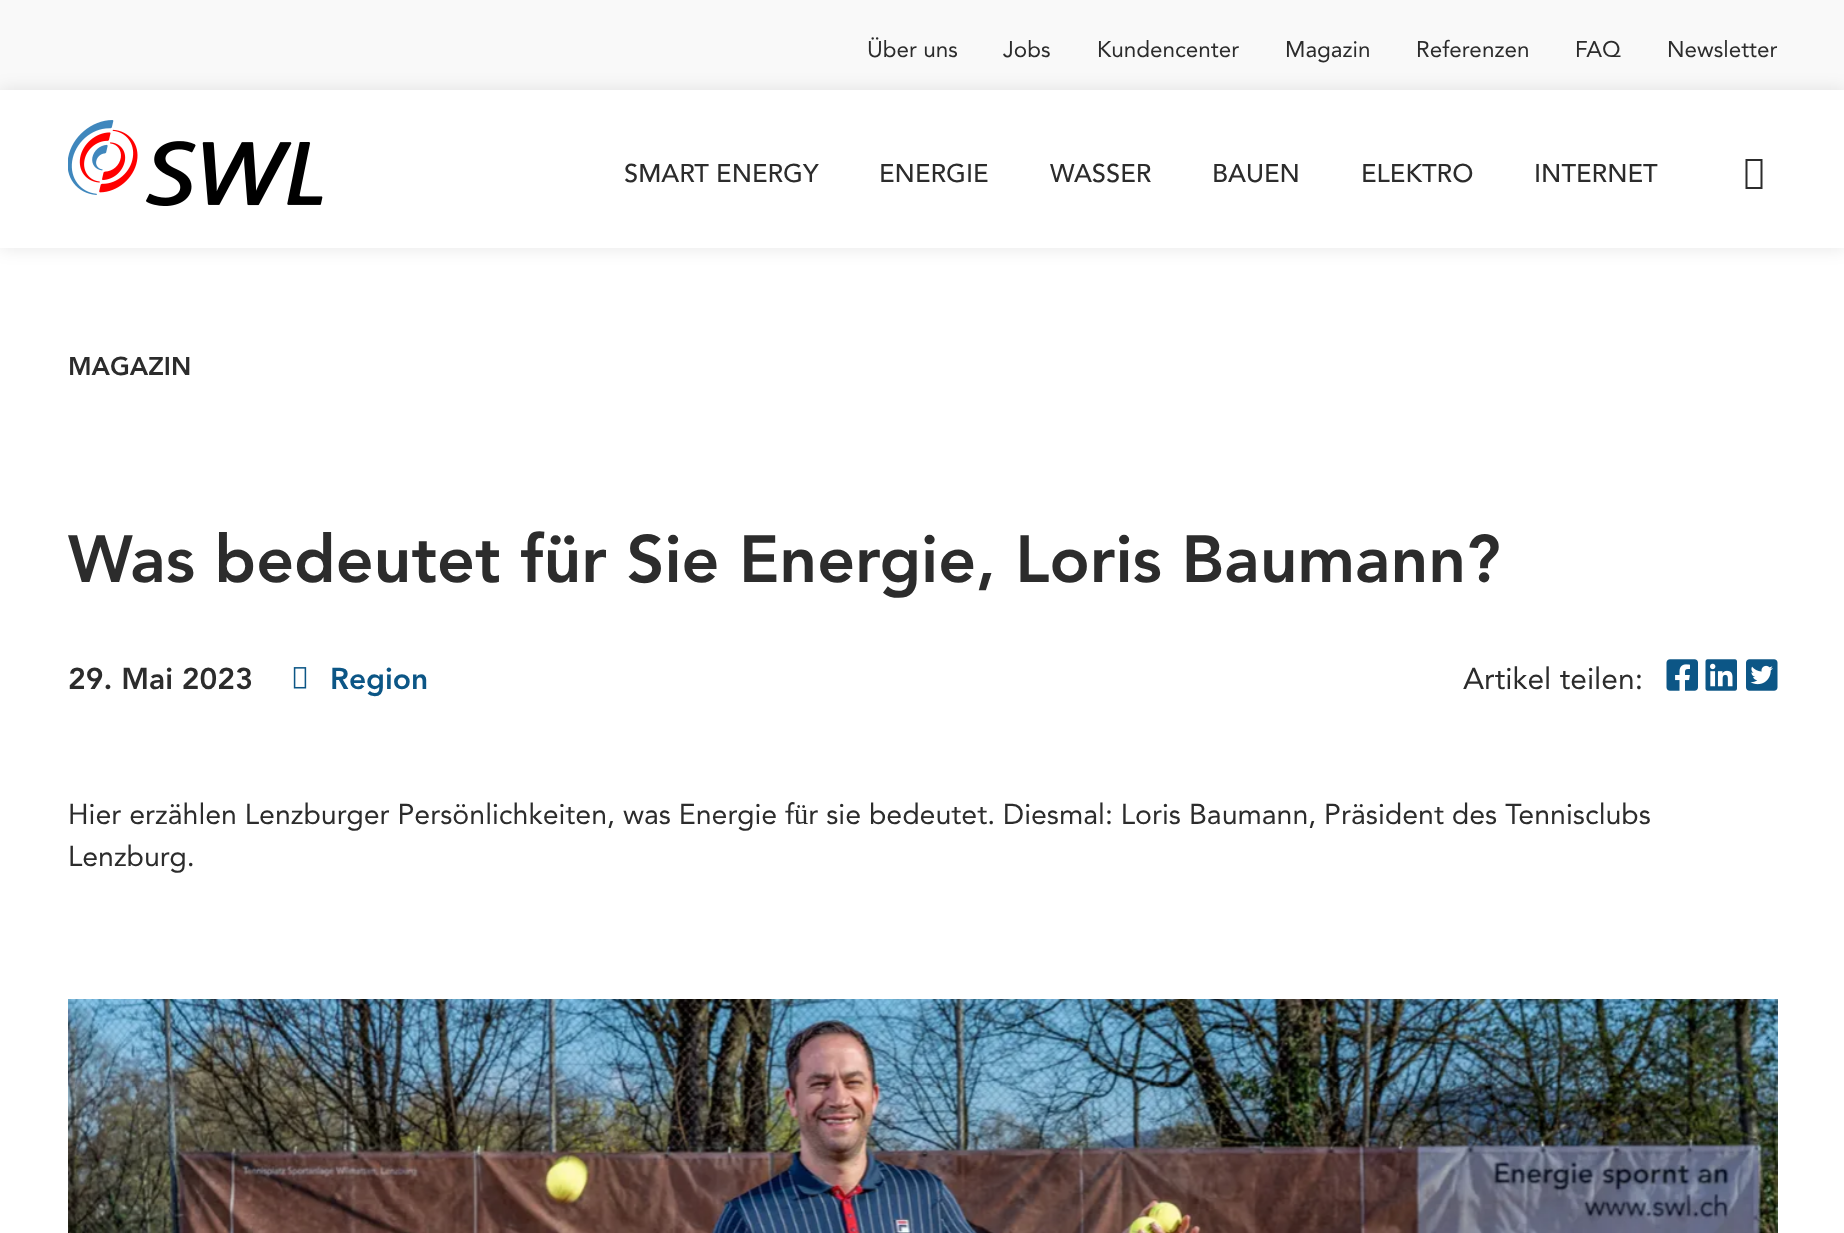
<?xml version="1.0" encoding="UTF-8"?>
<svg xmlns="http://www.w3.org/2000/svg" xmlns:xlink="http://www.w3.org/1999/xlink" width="1844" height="1233">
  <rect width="100%" height="100%" fill="#ffffff" />
  <rect width="1844" height="90" fill="#f9f9f9" />
  <rect y="90" width="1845" height="158" fill="#000000" fill-opacity="0.1" filter="blur(9px)" />
  <rect y="90" width="1844" height="158" fill="#ffffff" />
  <image x="68" y="120" width="255" height="86" xlink:href="image1.png" />
  <path d="M 1745.5 189 v -30 h 17 v 30 z m 2 -2 h 13 v -26 h -13 z" fill="#2c2c2c" />
  <image x="293" y="667" width="14" height="22" xlink:href="image2.png" />
  <image x="1666" y="659" width="32" height="32" xlink:href="image3.png" />
  <image x="1705" y="659" width="32" height="32" xlink:href="image4.png" />
  <image x="1746" y="659" width="32" height="32" xlink:href="image5.png" />
  <image x="68" y="999" width="1710" height="234" xlink:href="image6.png" />
  <text x="867" y="57" style="font-family: Avenir; font-size: 22.5px; fill: #2c2c2c">Über uns</text>
  <text x="1003" y="57" style="font-family: Avenir; font-size: 22.5px; fill: #2c2c2c">Jobs</text>
  <text x="1097" y="57" style="font-family: Avenir; font-size: 22.5px; fill: #2c2c2c">Kundencenter</text>
  <text x="1285" y="57" style="font-family: Avenir; font-size: 22.5px; fill: #2c2c2c">Magazin</text>
  <text x="1416" y="57" style="font-family: Avenir; font-size: 22.5px; fill: #2c2c2c">Referenzen</text>
  <text x="1575" y="57" style="font-family: Avenir; font-size: 22.5px; fill: #2c2c2c">FAQ</text>
  <text x="1667" y="57" style="font-family: Avenir; font-size: 22.5px; fill: #2c2c2c">Newsletter</text>
  <text x="624" y="182" style="font-family: Avenir; font-size: 25.5px; font-weight: 500; fill: #2c2c2c">SMART ENERGY</text>
  <text x="879" y="182" style="font-family: Avenir; font-size: 25.5px; font-weight: 500; fill: #2c2c2c">ENERGIE</text>
  <text x="1050" y="182" style="font-family: Avenir; font-size: 25.5px; font-weight: 500; fill: #2c2c2c">WASSER</text>
  <text x="1212" y="182" style="font-family: Avenir; font-size: 25.5px; font-weight: 500; fill: #2c2c2c">BAUEN</text>
  <text x="1361" y="182" style="font-family: Avenir; font-size: 25.5px; font-weight: 500; fill: #2c2c2c">ELEKTRO</text>
  <text x="1534" y="182" style="font-family: Avenir; font-size: 25.5px; font-weight: 500; fill: #2c2c2c">INTERNET</text>
  <text x="68" y="375" style="font-family: Avenir; font-size: 25.5px; font-weight: 900; fill: #2c2c2c">MAGAZIN</text>
  <text x="68" y="582" style="font-family: Avenir; font-size: 66px; font-weight: 900; fill: #2c2c2c">Was bedeutet für Sie Energie, Loris Baumann?</text>
  <text x="68" y="689" style="font-family: Avenir; font-size: 30px; font-weight: 900; fill: #2c2c2c">29. Mai 2023</text>
  <text x="330" y="689" style="font-family: Avenir; font-size: 30px; font-weight: 900; fill: #0c5686">Region</text>
  <text x="1463" y="689" style="font-family: Avenir; font-size: 30px; fill: #2c2c2c">Artikel teilen:</text>
  <text x="68" y="824" style="font-family: Avenir; font-size: 28.5px; fill: #2c2c2c">Hier erzählen Lenzburger Persönlichkeiten, was Energie für sie bedeutet. Diesmal: Loris Baumann, Präsident des Tennisclubs</text>
  <text x="68" y="866" style="font-family: Avenir; font-size: 28.5px; fill: #2c2c2c">Lenzburg.</text>
</svg>
